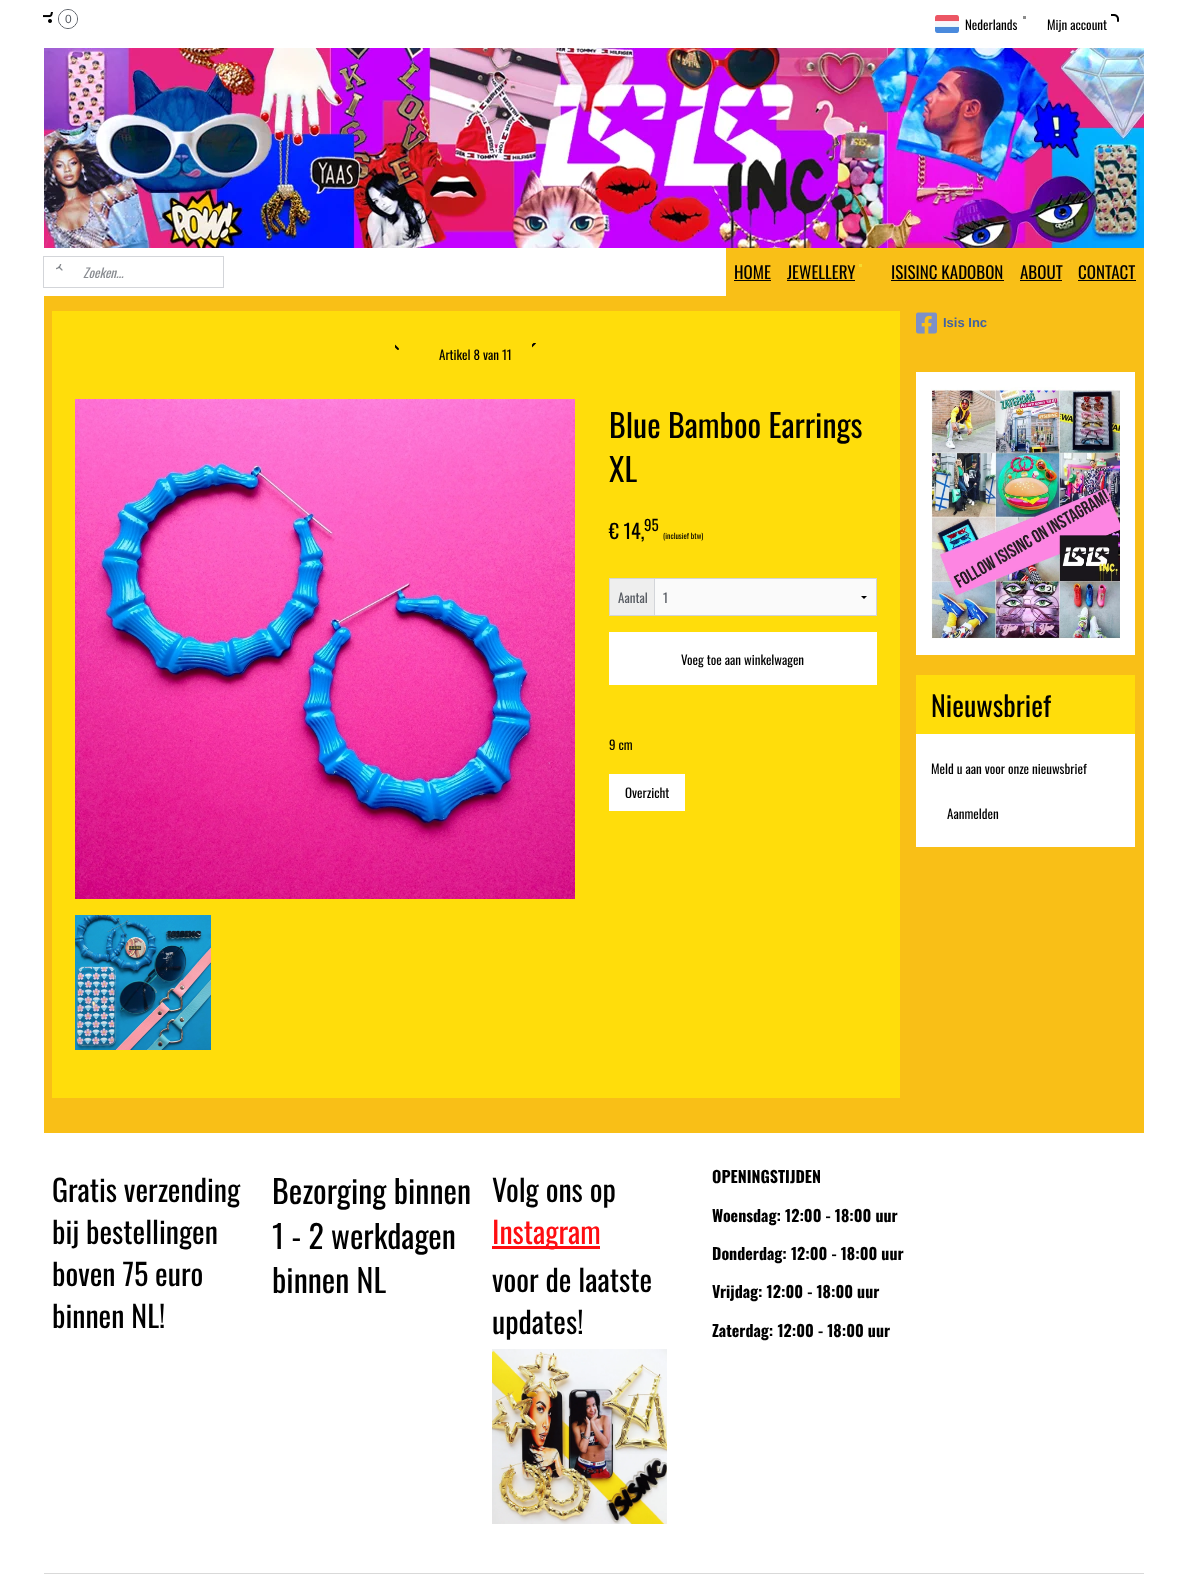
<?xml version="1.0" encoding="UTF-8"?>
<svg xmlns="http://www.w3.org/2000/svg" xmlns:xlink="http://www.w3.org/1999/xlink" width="1187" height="1581">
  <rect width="100%" height="100%" fill="#ffffff" />
  <image x="43" y="12" width="10" height="11" xlink:href="image1.png" />
  <circle cx="68" cy="19" r="9.5" fill="none" stroke="#575b62" />
  <circle cx="68" cy="19" r="9" fill="#ffffff" />
  <image x="935" y="15" width="24" height="18" xlink:href="image2.png" />
  <rect x="1023" y="16" width="3" height="3" fill="#8c8c8c" />
  <image x="1111" y="14" width="8" height="8" xlink:href="image3.png" />
  <image x="44" y="48" width="1100" height="200" xlink:href="image4.png" />
  <rect x="43.5" y="256.5" width="180" height="31" fill="none" stroke="#d3d5d9" />
  <image x="56" y="264" width="7" height="7" xlink:href="image5.png" />
  <rect x="726" y="248" width="53" height="48" fill="#f9bf17" />
  <rect x="734" y="280" width="37" height="1" fill="#000000" />
  <rect x="779" y="248" width="365" height="48" fill="#f9bf17" />
  <rect x="787" y="280" width="68" height="1" fill="#000000" />
  <rect x="859" y="264" width="3" height="3" fill="#f6dc2f" />
  <rect x="891" y="280" width="113" height="1" fill="#000000" />
  <rect x="1020" y="280" width="42" height="1" fill="#000000" />
  <rect x="1078" y="280" width="58" height="1" fill="#000000" />
  <rect x="44" y="296" width="1100" height="837" fill="#f9bf17" />
  <rect x="52" y="311" width="848" height="787" fill="#ffdd0b" />
  <image x="395" y="344" width="4" height="6" xlink:href="image6.png" />
  <image x="532" y="343" width="4" height="5" xlink:href="image7.png" />
  <image x="75" y="399" width="500" height="500" xlink:href="image8.png" />
  <image x="75" y="915" width="136" height="135" xlink:href="image9.png" />
  <rect x="609" y="578" width="268" height="1" fill="#d3d5d9" />
  <rect x="876" y="578" width="1" height="38" fill="#d3d5d9" />
  <rect x="654" y="579" width="1" height="37" fill="#d3d5d9" />
  <rect x="609" y="615" width="268" height="1" fill="#d3d5d9" />
  <rect x="609" y="578" width="1" height="38" fill="#d3d5d9" />
  <rect x="610" y="579" width="44" height="36" fill="#eeeeee" />
  <rect x="655" y="579" width="221" height="36" fill="#fafafa" />
  <path d="M 867 596 l -3 3 l -3 -3 z" fill="#000000" />
  <rect x="609" y="632" width="268" height="53" fill="#ffffff" />
  <rect x="609" y="774" width="76" height="37" fill="#ffffff" />
  <image x="916" y="312" width="21" height="22" xlink:href="image10.png" />
  <rect x="916" y="372" width="219" height="283" fill="#ffffff" />
  <image x="931" y="387" width="189" height="252" xlink:href="image11.png" />
  <rect x="916" y="734" width="219" height="113" fill="#ffffff" />
  <rect x="916" y="675" width="219" height="59" fill="#ffdd0b" />
  <rect x="492" y="1246" width="108" height="3" fill="#ff0e12" />
  <image x="492" y="1349" width="175" height="175" xlink:href="image12.png" />
  <rect x="44" y="1573" width="1100" height="1" fill="#d9d9d9" />
  <text x="65" y="23" style="font-family: Liberation Sans; font-size: 12px; fill: #575b62">0</text>
  <text x="965" y="30" style="font-family: Oswald; font-size: 13px; fill: #000000">Nederlands</text>
  <text x="1047" y="30" style="font-family: Oswald; font-size: 13px; fill: #000000">Mijn account</text>
  <text x="83" y="278" style="font-family: Oswald; font-size: 13px; font-style: italic; fill: #898c91">Zoeken...</text>
  <text x="734" y="279" style="font-family: Oswald; font-size: 17px; fill: #000000">HOME</text>
  <text x="787" y="279" style="font-family: Oswald; font-size: 17px; fill: #000000">JEWELLERY</text>
  <text x="891" y="279" style="font-family: Oswald; font-size: 17px; fill: #000000">ISISINC KADOBON</text>
  <text x="1020" y="279" style="font-family: Oswald; font-size: 17px; fill: #000000">ABOUT</text>
  <text x="1078" y="279" style="font-family: Oswald; font-size: 17px; fill: #000000">CONTACT</text>
  <text x="439" y="360" style="font-family: Oswald; font-size: 13px; fill: #000000">Artikel 8 van 11</text>
  <text x="609" y="438" style="font-family: Oswald; font-size: 32px; fill: #000000">Blue Bamboo Earrings</text>
  <text x="609" y="482" style="font-family: Oswald; font-size: 32px; fill: #000000">XL</text>
  <text x="609" y="539" style="font-family: Oswald; font-size: 20px; fill: #000000">€ 14,</text>
  <text x="644" y="531" style="font-family: Oswald; font-size: 15px; fill: #000000">95</text>
  <text x="663" y="539" style="font-family: Oswald; font-size: 7.75px; fill: #000000">(inclusief btw)</text>
  <text x="618" y="603" style="font-family: Oswald; font-size: 13px; fill: #575b62">Aantal</text>
  <text x="663" y="603" style="font-family: Oswald; font-size: 13px; fill: #575b62">1</text>
  <text x="681" y="665" style="font-family: Oswald; font-size: 13px; fill: #000000">Voeg toe aan winkelwagen</text>
  <text x="609" y="750" style="font-family: Oswald; font-size: 13px; fill: #000000">9 cm</text>
  <text x="625" y="798" style="font-family: Oswald; font-size: 13px; fill: #000000">Overzicht</text>
  <text x="943" y="327" style="font-family: Liberation Sans; font-size: 13px; font-weight: bold; fill: #4062a3">Isis Inc</text>
  <text x="931" y="717" style="font-family: Oswald; font-size: 28px; fill: #000000">Nieuwsbrief</text>
  <text x="931" y="774" style="font-family: Oswald; font-size: 13px; fill: #000000">Meld u aan voor onze nieuwsbrief</text>
  <text x="947" y="819" style="font-family: Oswald; font-size: 13px; fill: #000000">Aanmelden</text>
  <text x="52" y="1202" style="font-family: Oswald; font-size: 30px; fill: #000000">Gratis verzending</text>
  <text x="52" y="1244" style="font-family: Oswald; font-size: 30px; fill: #000000">bij bestellingen</text>
  <text x="52" y="1286" style="font-family: Oswald; font-size: 30px; fill: #000000">boven 75 euro</text>
  <text x="52" y="1328" style="font-family: Oswald; font-size: 30px; fill: #000000">binnen NL!</text>
  <text x="272" y="1204" style="font-family: Oswald; font-size: 32px; fill: #000000">Bezorging binnen</text>
  <text x="272" y="1249" style="font-family: Oswald; font-size: 32px; fill: #000000">1 - 2 werkdagen</text>
  <text x="272" y="1293" style="font-family: Oswald; font-size: 32px; fill: #000000">binnen NL</text>
  <text x="492" y="1202" style="font-family: Oswald; font-size: 30px; fill: #000000">Volg ons op</text>
  <text x="492" y="1244" style="font-family: Oswald; font-size: 30px; fill: #ff0e12">Instagram</text>
  <text x="492" y="1292" style="font-family: Oswald; font-size: 30px; fill: #000000">voor de laatste</text>
  <text x="492" y="1334" style="font-family: Oswald; font-size: 30px; fill: #000000">updates!</text>
  <text x="712" y="1183" style="font-family: Oswald; font-size: 16px; font-weight: bold; fill: #000000">OPENINGSTIJDEN</text>
  <text x="712" y="1222" style="font-family: Oswald; font-size: 16px; font-weight: bold; fill: #000000">Woensdag: 12:00 - 18:00 uur</text>
  <text x="712" y="1260" style="font-family: Oswald; font-size: 16px; font-weight: bold; fill: #000000">Donderdag: 12:00 - 18:00 uur</text>
  <text x="712" y="1298" style="font-family: Oswald; font-size: 16px; font-weight: bold; fill: #000000">Vrijdag: 12:00 - 18:00 uur</text>
  <text x="712" y="1337" style="font-family: Oswald; font-size: 16px; font-weight: bold; fill: #000000">Zaterdag: 12:00 - 18:00 uur</text>
</svg>
